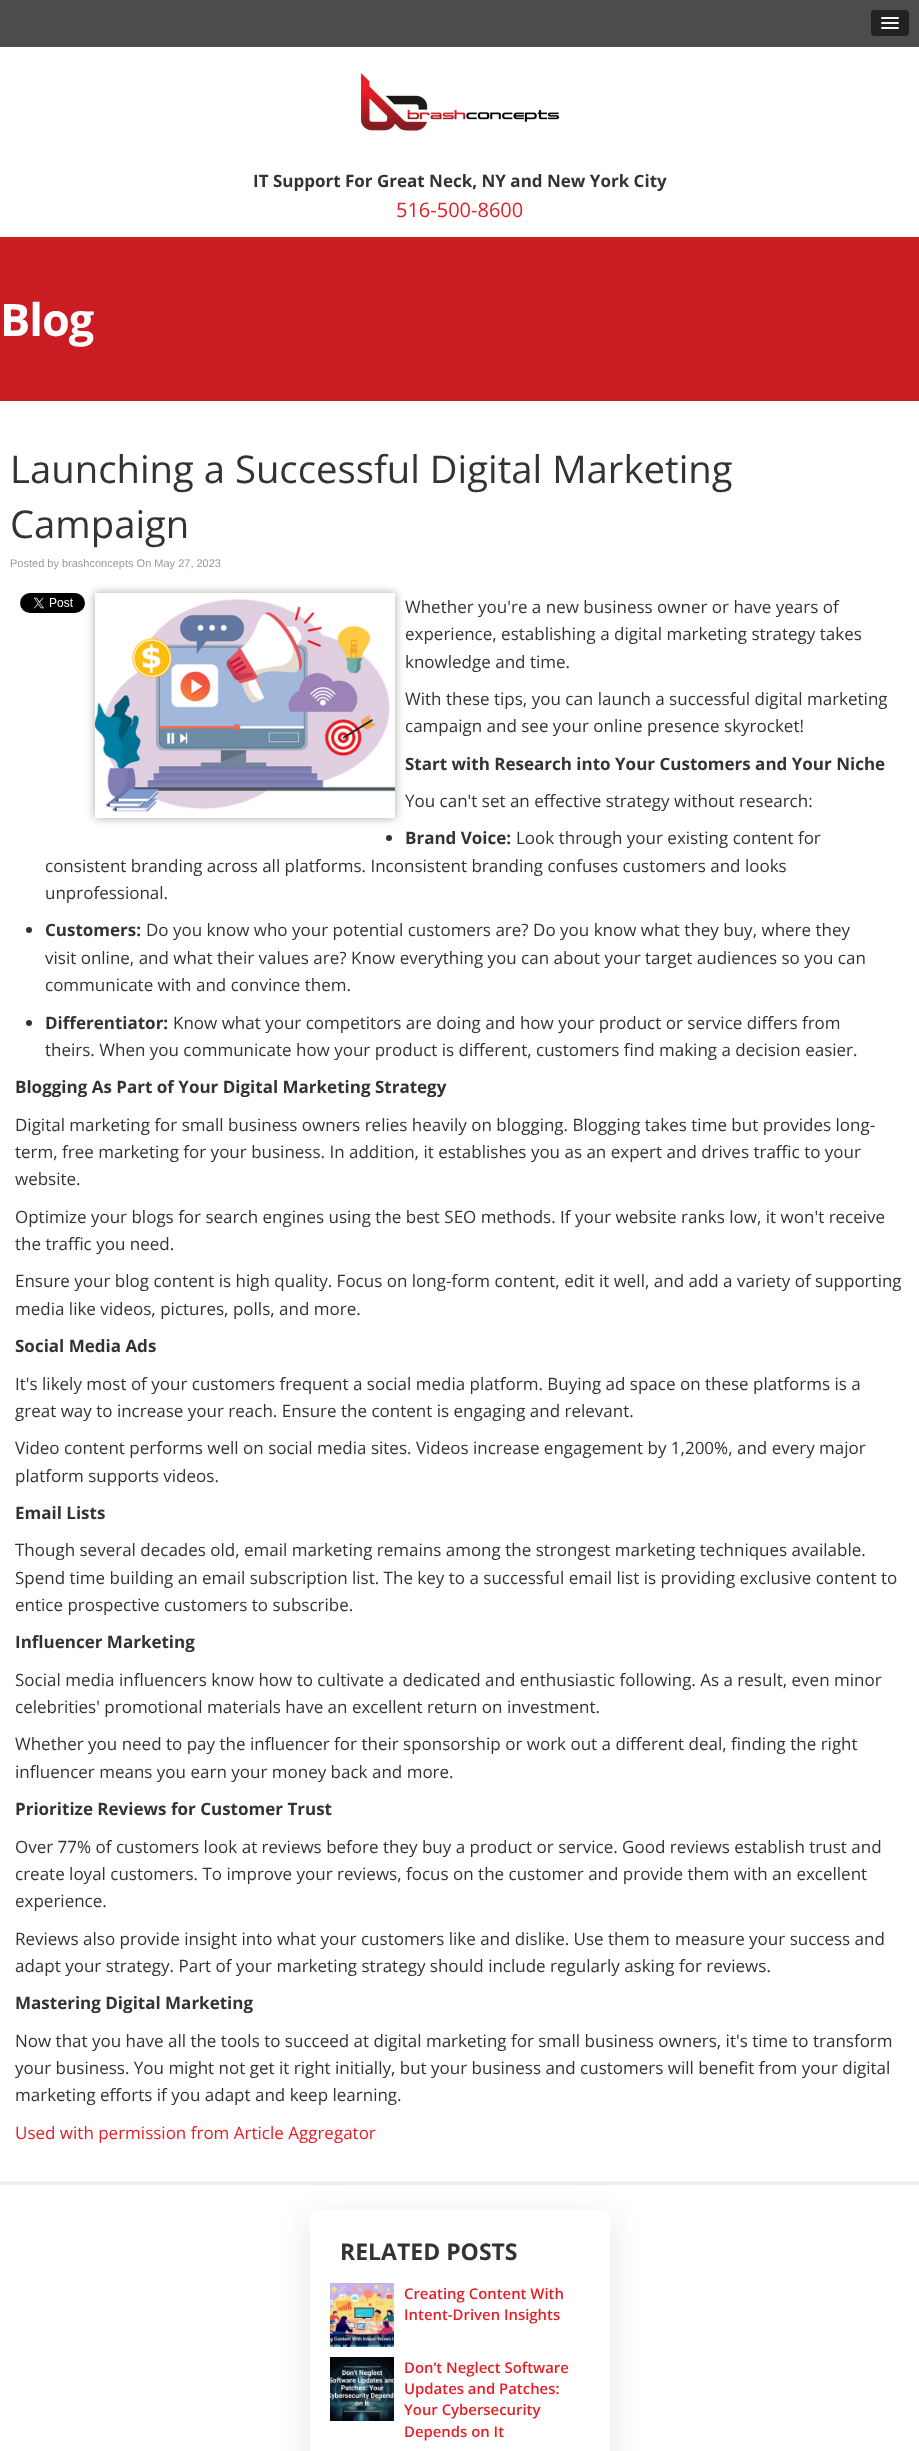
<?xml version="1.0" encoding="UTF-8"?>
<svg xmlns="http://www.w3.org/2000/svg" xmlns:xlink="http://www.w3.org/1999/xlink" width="919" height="2451">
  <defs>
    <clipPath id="clip1"><path d="M 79 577 h 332 v 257 h -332 z m 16 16 h 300 v 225 h -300 z" clip-rule="evenodd" /></clipPath>
    <clipPath id="clip2"><path d="M 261 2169 h 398 v 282 h -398 z m 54 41 h 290 c 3 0 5 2 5 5 v 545 c 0 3 -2 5 -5 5 h -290 c -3 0 -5 -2 -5 -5 v -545 c 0 -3 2 -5 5 -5 z" clip-rule="evenodd" /></clipPath>
  </defs>
  <rect width="100%" height="100%" fill="#ffffff" />
  <rect width="919" height="47" fill="#4c4c4c" />
  <rect x="871" y="10" width="38" height="26" rx="4" fill="#222222" />
  <path d="M 881 18.5 c -1 2 3.5 1.5 3.5 1.5 h 11 c 0 0 4.5 0.5 3.5 -1.5 c -1 1 -7.5 0.5 -9 0.5 c -1.5 0 -8 0.5 -9 -0.5 z" fill="#1a1a1a" />
  <rect x="881" y="17" width="18" height="2" rx="1" fill="#f5f5f5" />
  <path d="M 881 23.5 c -1 2 3.5 1.5 3.5 1.5 h 11 c 0 0 4.5 0.5 3.5 -1.5 c -1 1 -7.5 0.5 -9 0.5 c -1.5 0 -8 0.5 -9 -0.5 z" fill="#1a1a1a" />
  <rect x="881" y="22" width="18" height="2" rx="1" fill="#f5f5f5" />
  <path d="M 881 28.5 c -1 2 3.5 1.5 3.5 1.5 h 11 c 0 0 4.5 0.5 3.5 -1.5 c -1 1 -7.5 0.5 -9 0.5 c -1.5 0 -8 0.5 -9 -0.5 z" fill="#1a1a1a" />
  <rect x="881" y="27" width="18" height="2" rx="1" fill="#f5f5f5" />
  <image x="360" y="73" width="200" height="58" xlink:href="image1.png" />
  <rect y="237" width="919" height="164" fill="#ca1c23" />
  <g clip-path="url(#clip1)">
    <rect x="95" y="593" width="300" height="225" fill="#000000" fill-opacity="0.35" filter="blur(5px)" />
  </g>
  <image x="20" y="593" width="65" height="20" xlink:href="image2.png" />
  <image x="95" y="599" width="300" height="213" xlink:href="image3.png" />
  <circle cx="389" cy="838" r="3" fill="#333333" />
  <circle cx="29" cy="930" r="3" fill="#333333" />
  <circle cx="29" cy="1023" r="3" fill="#333333" />
  <rect y="2181" width="919" height="4" fill="#eeeeee" />
  <g clip-path="url(#clip2)">
    <rect x="310" y="2218" width="300" height="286" rx="5" fill="#000000" fill-opacity="0.1" filter="blur(16px)" />
  </g>
  <image x="330" y="2283" width="64" height="64" xlink:href="image4.png" />
  <image x="330" y="2357" width="64" height="64" xlink:href="image5.png" />
  <text x="253" y="187" style="font-family: Open Sans; font-size: 17px; font-weight: bold; fill: #333333">IT Support For Great Neck, NY and New York City</text>
  <text x="396" y="217" style="font-family: Open Sans; font-size: 20px; fill: #e71c24">516-500-8600</text>
  <text x="0" y="336" style="font-family: Open Sans; font-size: 45px; font-weight: bold; letter-spacing: -1px; fill: #ffffff">Blog</text>
  <text x="10" y="483" style="font-family: Open Sans; font-size: 38.25px; fill: #333333">Launching a Successful Digital Marketing</text>
  <text x="10" y="538" style="font-family: Open Sans; font-size: 38.25px; fill: #333333">Campaign</text>
  <text x="10" y="567" style="font-family: Liberation Sans; font-size: 11px; fill: #999999">Posted by brashconcepts On May 27, 2023</text>
  <text x="405" y="613" style="font-family: Open Sans; font-size: 17px; fill: #333333">Whether you're a new business owner or have years of</text>
  <text x="405" y="640" style="font-family: Open Sans; font-size: 17px; fill: #333333">experience, establishing a digital marketing strategy takes</text>
  <text x="405" y="668" style="font-family: Open Sans; font-size: 17px; fill: #333333">knowledge and time.</text>
  <text x="405" y="705" style="font-family: Open Sans; font-size: 17px; fill: #333333">With these tips, you can launch a successful digital marketing</text>
  <text x="405" y="732" style="font-family: Open Sans; font-size: 17px; fill: #333333">campaign and see your online presence skyrocket!</text>
  <text x="405" y="770" style="font-family: Open Sans; font-size: 17px; font-weight: bold; fill: #333333">Start with Research into Your Customers and Your Niche</text>
  <text x="405" y="807" style="font-family: Open Sans; font-size: 17px; fill: #333333">You can't set an effective strategy without research:</text>
  <text x="405" y="844" style="font-family: Open Sans; font-size: 17px; font-weight: bold; fill: #333333">Brand Voice:</text>
  <text x="516" y="844" style="font-family: Open Sans; font-size: 17px; fill: #333333">Look through your existing content for</text>
  <text x="45" y="872" style="font-family: Open Sans; font-size: 17px; fill: #333333">consistent branding across all platforms. Inconsistent branding confuses customers and looks</text>
  <text x="45" y="899" style="font-family: Open Sans; font-size: 17px; fill: #333333">unprofessional.</text>
  <text x="45" y="936" style="font-family: Open Sans; font-size: 17px; font-weight: bold; fill: #333333">Customers:</text>
  <text x="146" y="936" style="font-family: Open Sans; font-size: 17px; fill: #333333">Do you know who your potential customers are? Do you know what they buy, where they</text>
  <text x="45" y="964" style="font-family: Open Sans; font-size: 17px; fill: #333333">visit online, and what their values are? Know everything you can about your target audiences so you can</text>
  <text x="45" y="991" style="font-family: Open Sans; font-size: 17px; fill: #333333">communicate with and convince them.</text>
  <text x="45" y="1029" style="font-family: Open Sans; font-size: 17px; font-weight: bold; fill: #333333">Differentiator:</text>
  <text x="173" y="1029" style="font-family: Open Sans; font-size: 17px; fill: #333333">Know what your competitors are doing and how your product or service differs from</text>
  <text x="45" y="1056" style="font-family: Open Sans; font-size: 17px; fill: #333333">theirs. When you communicate how your product is different, customers find making a decision easier.</text>
  <text x="15" y="1093" style="font-family: Open Sans; font-size: 17px; font-weight: bold; fill: #333333">Blogging As Part of Your Digital Marketing Strategy</text>
  <text x="15" y="1131" style="font-family: Open Sans; font-size: 17px; fill: #333333">Digital marketing for small business owners relies heavily on blogging. Blogging takes time but provides long-</text>
  <text x="15" y="1158" style="font-family: Open Sans; font-size: 17px; fill: #333333">term, free marketing for your business. In addition, it establishes you as an expert and drives traffic to your</text>
  <text x="15" y="1185" style="font-family: Open Sans; font-size: 17px; fill: #333333">website.</text>
  <text x="15" y="1223" style="font-family: Open Sans; font-size: 17px; fill: #333333">Optimize your blogs for search engines using the best SEO methods. If your website ranks low, it won't receive</text>
  <text x="15" y="1250" style="font-family: Open Sans; font-size: 17px; fill: #333333">the traffic you need.</text>
  <text x="15" y="1287" style="font-family: Open Sans; font-size: 17px; fill: #333333">Ensure your blog content is high quality. Focus on long-form content, edit it well, and add a variety of supporting</text>
  <text x="15" y="1315" style="font-family: Open Sans; font-size: 17px; fill: #333333">media like videos, pictures, polls, and more.</text>
  <text x="15" y="1352" style="font-family: Open Sans; font-size: 17px; font-weight: bold; fill: #333333">Social Media Ads</text>
  <text x="15" y="1390" style="font-family: Open Sans; font-size: 17px; fill: #333333">It's likely most of your customers frequent a social media platform. Buying ad space on these platforms is a</text>
  <text x="15" y="1417" style="font-family: Open Sans; font-size: 17px; fill: #333333">great way to increase your reach. Ensure the content is engaging and relevant.</text>
  <text x="15" y="1454" style="font-family: Open Sans; font-size: 17px; fill: #333333">Video content performs well on social media sites. Videos increase engagement by 1,200%, and every major</text>
  <text x="15" y="1482" style="font-family: Open Sans; font-size: 17px; fill: #333333">platform supports videos.</text>
  <text x="15" y="1519" style="font-family: Open Sans; font-size: 17px; font-weight: bold; fill: #333333">Email Lists</text>
  <text x="15" y="1556" style="font-family: Open Sans; font-size: 17px; fill: #333333">Though several decades old, email marketing remains among the strongest marketing techniques available.</text>
  <text x="15" y="1584" style="font-family: Open Sans; font-size: 17px; fill: #333333">Spend time building an email subscription list. The key to a successful email list is providing exclusive content to</text>
  <text x="15" y="1611" style="font-family: Open Sans; font-size: 17px; fill: #333333">entice prospective customers to subscribe.</text>
  <text x="15" y="1648" style="font-family: Open Sans; font-size: 17px; font-weight: bold; fill: #333333">Influencer Marketing</text>
  <text x="15" y="1686" style="font-family: Open Sans; font-size: 17px; fill: #333333">Social media influencers know how to cultivate a dedicated and enthusiastic following. As a result, even minor</text>
  <text x="15" y="1713" style="font-family: Open Sans; font-size: 17px; fill: #333333">celebrities' promotional materials have an excellent return on investment.</text>
  <text x="15" y="1750" style="font-family: Open Sans; font-size: 17px; fill: #333333">Whether you need to pay the influencer for their sponsorship or work out a different deal, finding the right</text>
  <text x="15" y="1778" style="font-family: Open Sans; font-size: 17px; fill: #333333">influencer means you earn your money back and more.</text>
  <text x="15" y="1815" style="font-family: Open Sans; font-size: 17px; font-weight: bold; fill: #333333">Prioritize Reviews for Customer Trust</text>
  <text x="15" y="1853" style="font-family: Open Sans; font-size: 17px; fill: #333333">Over 77% of customers look at reviews before they buy a product or service. Good reviews establish trust and</text>
  <text x="15" y="1880" style="font-family: Open Sans; font-size: 17px; fill: #333333">create loyal customers. To improve your reviews, focus on the customer and provide them with an excellent</text>
  <text x="15" y="1907" style="font-family: Open Sans; font-size: 17px; fill: #333333">experience.</text>
  <text x="15" y="1945" style="font-family: Open Sans; font-size: 17px; fill: #333333">Reviews also provide insight into what your customers like and dislike. Use them to measure your success and</text>
  <text x="15" y="1972" style="font-family: Open Sans; font-size: 17px; fill: #333333">adapt your strategy. Part of your marketing strategy should include regularly asking for reviews.</text>
  <text x="15" y="2009" style="font-family: Open Sans; font-size: 17px; font-weight: bold; fill: #333333">Mastering Digital Marketing</text>
  <text x="15" y="2047" style="font-family: Open Sans; font-size: 17px; fill: #333333">Now that you have all the tools to succeed at digital marketing for small business owners, it's time to transform</text>
  <text x="15" y="2074" style="font-family: Open Sans; font-size: 17px; fill: #333333">your business. You might not get it right initially, but your business and customers will benefit from your digital</text>
  <text x="15" y="2101" style="font-family: Open Sans; font-size: 17px; fill: #333333">marketing efforts if you adapt and keep learning.</text>
  <text x="15" y="2139" style="font-family: Open Sans; font-size: 17px; fill: #e71c24">Used with permission from Article Aggregator</text>
  <text x="340" y="2260" style="font-family: Open Sans; font-size: 23px; font-weight: bold; fill: #333333">RELATED POSTS</text>
  <text x="404" y="2299" style="font-family: Open Sans; font-size: 14.9px; font-weight: 600; fill: #e71c24">Creating Content With</text>
  <text x="404" y="2320" style="font-family: Open Sans; font-size: 14.9px; font-weight: 600; fill: #e71c24">Intent-Driven Insights</text>
  <text x="404" y="2373" style="font-family: Open Sans; font-size: 14.9px; font-weight: 600; fill: #e71c24">Don’t Neglect Software</text>
  <text x="404" y="2394" style="font-family: Open Sans; font-size: 14.9px; font-weight: 600; fill: #e71c24">Updates and Patches:</text>
  <text x="404" y="2415" style="font-family: Open Sans; font-size: 14.9px; font-weight: 600; fill: #e71c24">Your Cybersecurity</text>
  <text x="404" y="2437" style="font-family: Open Sans; font-size: 14.9px; font-weight: 600; fill: #e71c24">Depends on It</text>
</svg>
